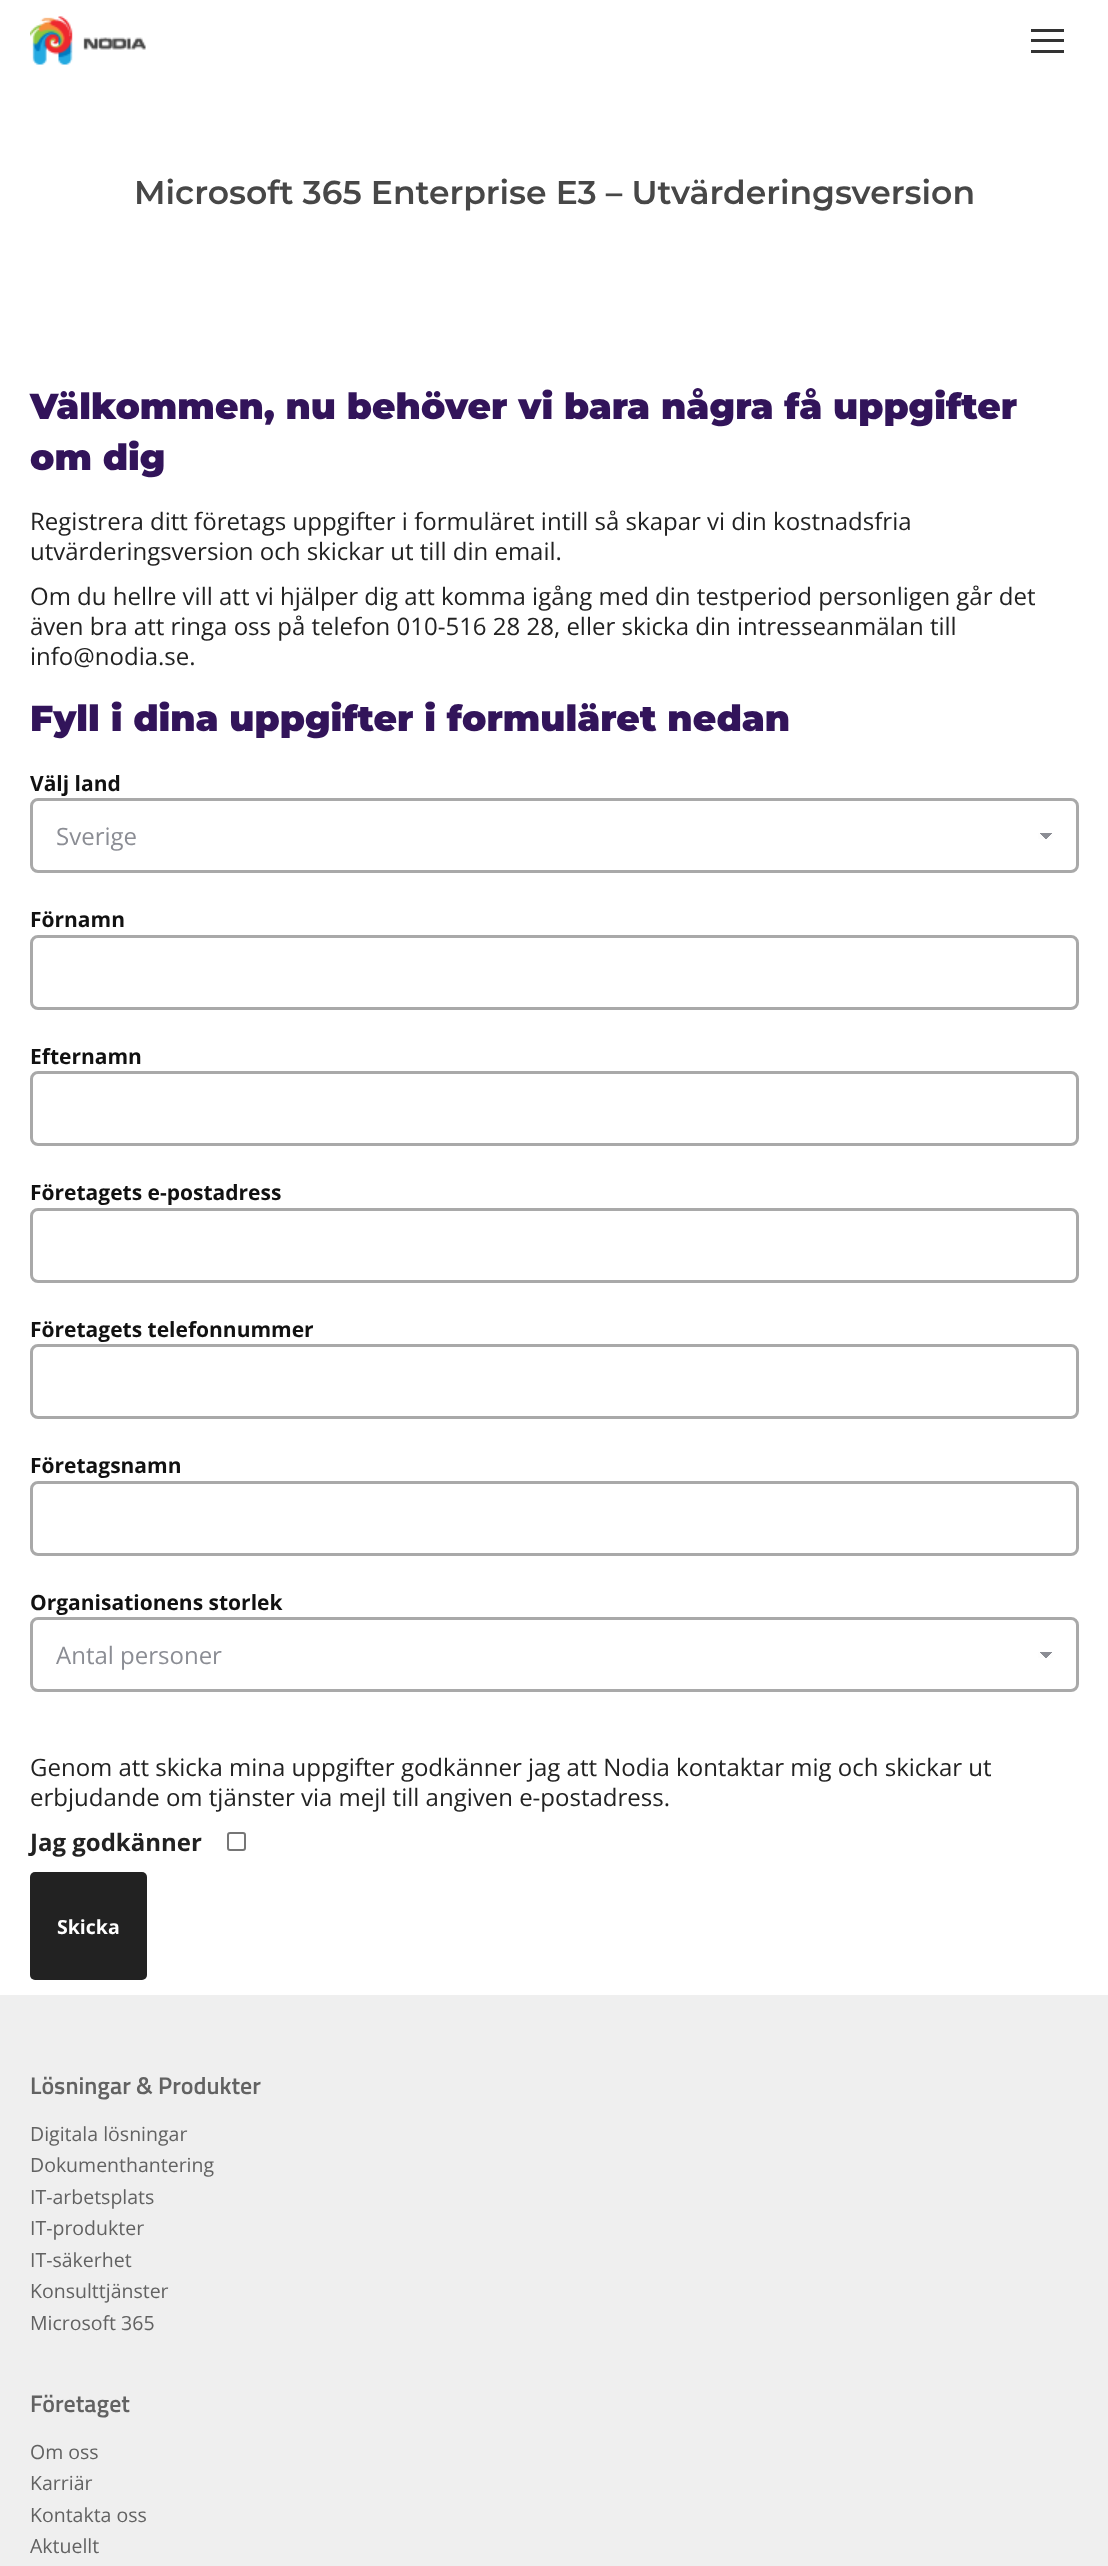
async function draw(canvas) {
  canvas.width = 1108
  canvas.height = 2566
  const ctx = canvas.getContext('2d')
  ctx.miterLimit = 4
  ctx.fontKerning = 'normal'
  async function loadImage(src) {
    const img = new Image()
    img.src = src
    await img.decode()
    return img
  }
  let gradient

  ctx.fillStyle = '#fff'
  ctx.fillRect(0, 0, 1108, 2566)
  ctx.drawImage(await loadImage('image0.png'), 30, 16, 116, 49)
  ctx.fillStyle = '#333'
  ctx.fillRect(1031, 29, 33, 3)
  ctx.fillRect(1031, 39, 33, 3)
  ctx.fillRect(1031, 50, 33, 3)
  ctx.font = '600 33px Montserrat'
  ctx.fillStyle = '#474747'
  ctx.fillText('Microsoft 365 Enterprise E3 – Utvärderingsversion', 134, 204)
  ctx.font = '900 36px Montserrat'
  ctx.fillStyle = '#32145a'
  ctx.fillText('Välkommen, nu behöver vi bara några få uppgifter', 30, 419)
  ctx.fillText('om dig', 30, 470)
  ctx.font = '24px Open Sans'
  ctx.fillStyle = '#222'
  ctx.fillText('Registrera ditt företags uppgifter i formuläret intill så skapar vi din kostnadsfria', 30, 530)
  ctx.fillText('utvärderingsversion och skickar ut till din email.', 30, 560)
  ctx.fillText('Om du hellre vill att vi hjälper dig att komma igång med din testperiod personligen går det', 30, 605)
  ctx.fillText('även bra att ringa oss på telefon 010-516 28 28, eller skicka din intresseanmälan till', 30, 635)
  ctx.fillText('info@nodia.se.', 30, 665)
  ctx.font = '900 36px Montserrat'
  ctx.fillStyle = '#32145a'
  ctx.fillText('Fyll i dina uppgifter i formuläret nedan', 30, 731)
  ctx.font = 'bold 21px Open Sans'
  ctx.fillStyle = '#111'
  ctx.fillText('Välj land', 30, 791)
  gradient = ctx.createLinearGradient(1046, 832, 1053, 839)
  gradient.addColorStop(0.5, '#8b8d94')
  gradient.addColorStop(0.5, '#fdfdfd')
  ctx.fillStyle = gradient
  ctx.fillRect(1046, 833, 7, 6)
  gradient = ctx.createLinearGradient(1038, 839, 1046, 832)
  gradient.addColorStop(0.5, '#fdfdfd')
  gradient.addColorStop(0.5, '#8b8d94')
  ctx.fillStyle = gradient
  ctx.fillRect(1038, 833, 8, 6)
  ctx.beginPath()
  ctx.roundRect(31.5, 799.5, 1046, 72, 6.5)
  ctx.strokeStyle = '#a9a9a9'
  ctx.lineWidth = 3
  ctx.stroke()
  ctx.font = '24px Open Sans'
  ctx.fillStyle = '#8b8d94'
  ctx.fillText('Sverige', 56, 845)
  ctx.font = 'bold 21px Open Sans'
  ctx.fillStyle = '#111'
  ctx.fillText('Förnamn', 30, 927)
  ctx.beginPath()
  ctx.roundRect(31.5, 936.5, 1046, 72, 6.5)
  ctx.stroke()
  ctx.fillText('Efternamn', 30, 1064)
  ctx.beginPath()
  ctx.roundRect(31.5, 1072.5, 1046, 72, 6.5)
  ctx.stroke()
  ctx.fillText('Företagets e-postadress', 30, 1200)
  ctx.beginPath()
  ctx.roundRect(31.5, 1209.5, 1046, 72, 6.5)
  ctx.stroke()
  ctx.fillText('Företagets telefonnummer', 30, 1337)
  ctx.beginPath()
  ctx.roundRect(31.5, 1345.5, 1046, 72, 6.5)
  ctx.stroke()
  ctx.fillText('Företagsnamn', 30, 1473)
  ctx.beginPath()
  ctx.roundRect(31.5, 1482.5, 1046, 72, 6.5)
  ctx.stroke()
  ctx.fillText('Organisationens storlek', 30, 1610)
  gradient = ctx.createLinearGradient(1046, 1651, 1053, 1658)
  gradient.addColorStop(0.5, '#8b8d94')
  gradient.addColorStop(0.5, '#fdfdfd')
  ctx.fillStyle = gradient
  ctx.fillRect(1046, 1652, 7, 6)
  gradient = ctx.createLinearGradient(1038, 1658, 1046, 1651)
  gradient.addColorStop(0.5, '#fdfdfd')
  gradient.addColorStop(0.5, '#8b8d94')
  ctx.fillStyle = gradient
  ctx.fillRect(1038, 1652, 8, 6)
  ctx.beginPath()
  ctx.roundRect(31.5, 1618.5, 1046, 72, 6.5)
  ctx.stroke()
  ctx.font = '24px Open Sans'
  ctx.fillStyle = '#8b8d94'
  ctx.fillText('Antal personer', 56, 1664)
  ctx.fillStyle = '#222'
  ctx.fillText('Genom att skicka mina uppgifter godkänner jag att Nodia kontaktar mig och skickar ut', 30, 1776)
  ctx.fillText('erbjudande om tjänster via mejl till angiven e-postadress.', 30, 1806)
  ctx.font = 'bold 24px Open Sans'
  ctx.fillText('Jag godkänner', 30, 1851)
  ctx.beginPath()
  ctx.roundRect(228, 1833, 17, 17, 2)
  ctx.strokeStyle = '#767676'
  ctx.lineWidth = 2
  ctx.stroke()
  ctx.beginPath()
  ctx.roundRect(30, 1872, 117, 108, 5)
  ctx.fill()
  ctx.font = 'bold 19.5px Open Sans'
  ctx.fillStyle = '#fff'
  ctx.fillText('Skicka', 57, 1934)
  ctx.fillStyle = '#efefef'
  ctx.fillRect(0, 1995, 1108, 571)
  ctx.font = '600 24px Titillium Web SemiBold'
  ctx.fillStyle = '#626262'
  ctx.fillText('Lösningar & Produkter', 30, 2094)
  ctx.font = '19.5px Open Sans'
  ctx.fillText('Digitala lösningar', 30, 2141)
  ctx.fillText('Dokumenthantering', 30, 2172)
  ctx.fillText('IT-arbetsplats', 30, 2204)
  ctx.fillText('IT-produkter', 30, 2235)
  ctx.fillText('IT-säkerhet', 30, 2267)
  ctx.fillText('Konsulttjänster', 30, 2298)
  ctx.fillText('Microsoft 365', 30, 2330)
  ctx.font = '600 24px Titillium Web SemiBold'
  ctx.fillText('Företaget', 30, 2412)
  ctx.font = '19.5px Open Sans'
  ctx.fillText('Om oss', 30, 2459)
  ctx.fillText('Karriär', 30, 2490)
  ctx.fillText('Kontakta oss', 30, 2522)
  ctx.fillText('Aktuellt', 30, 2553)
}

draw(document.querySelector('canvas'))
